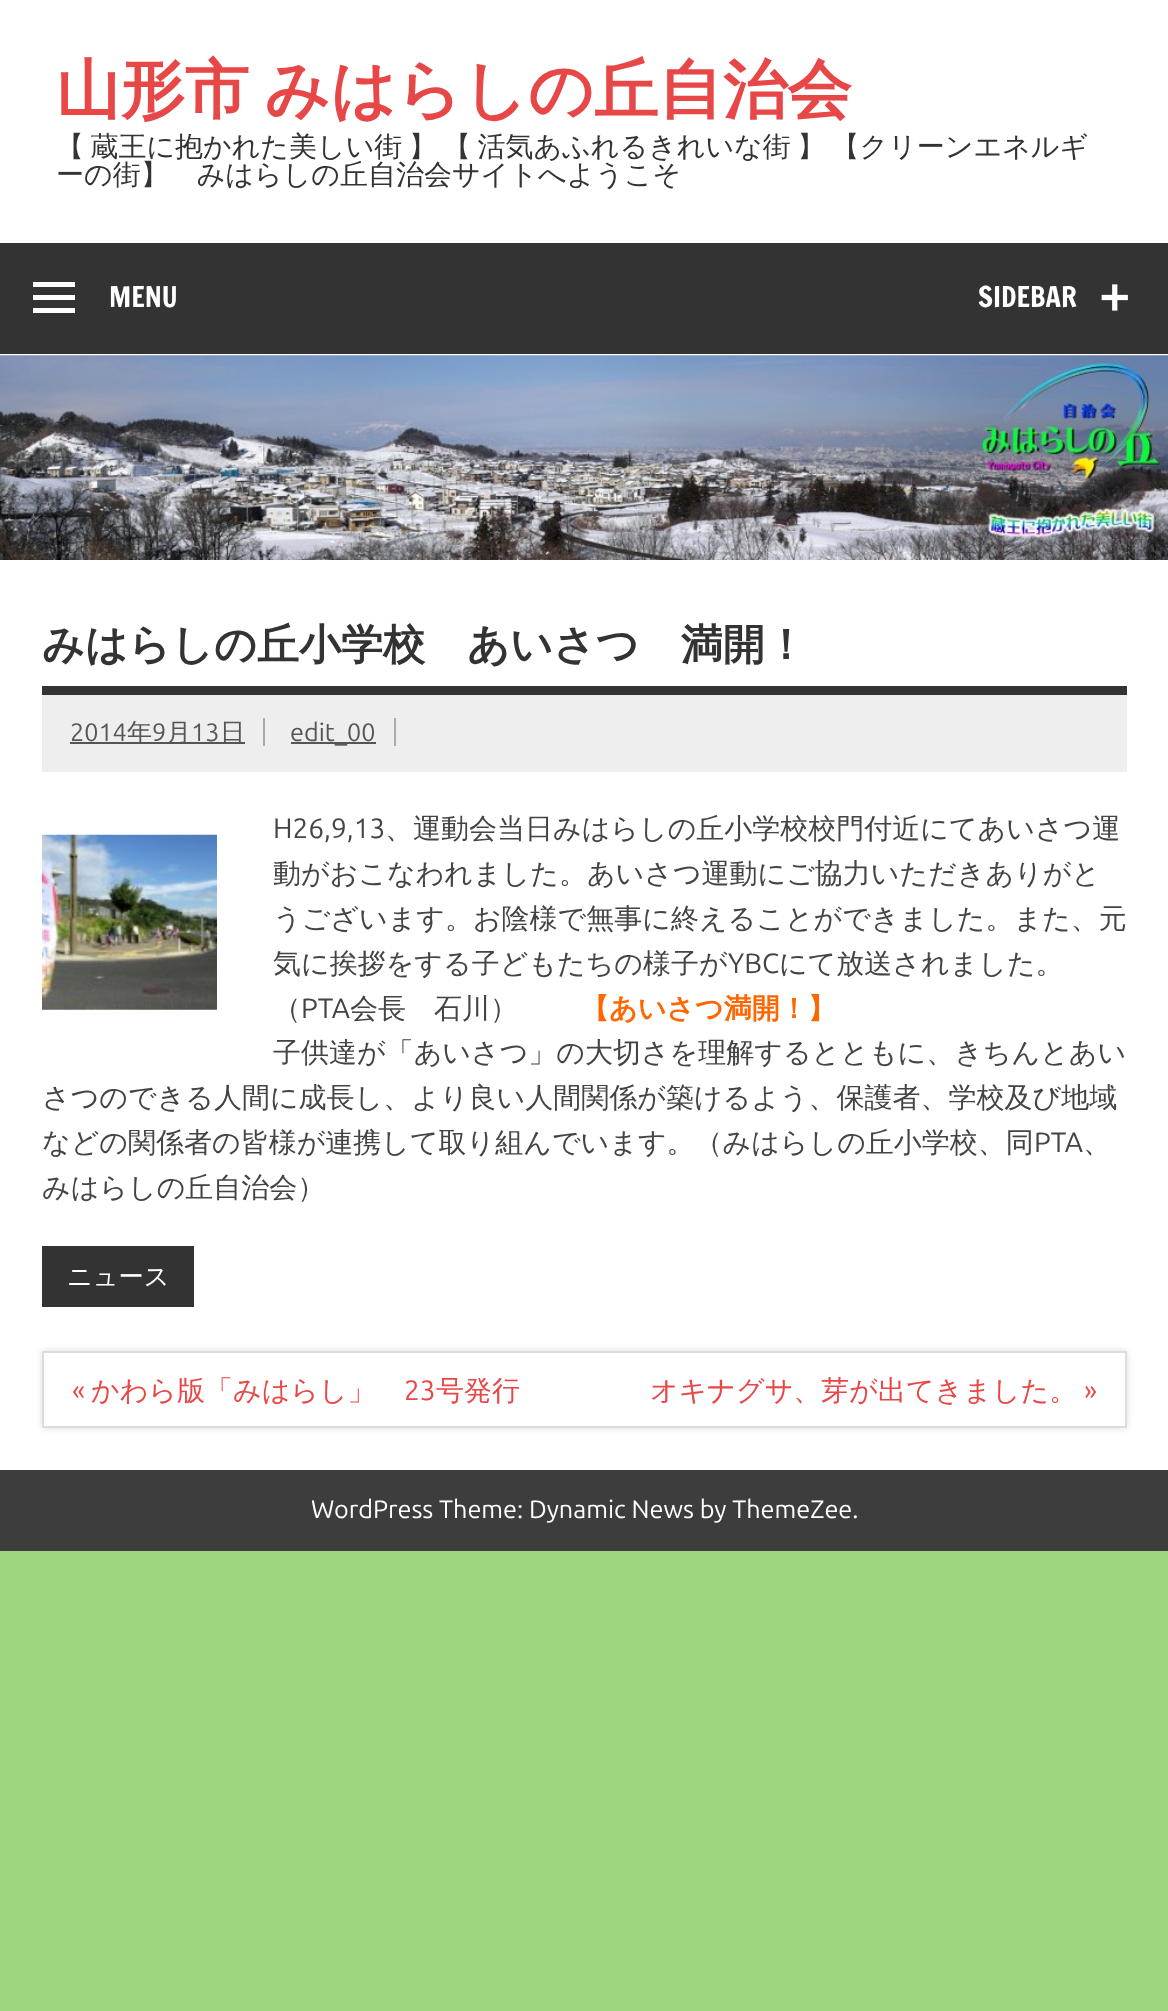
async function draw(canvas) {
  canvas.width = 1168
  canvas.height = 2011
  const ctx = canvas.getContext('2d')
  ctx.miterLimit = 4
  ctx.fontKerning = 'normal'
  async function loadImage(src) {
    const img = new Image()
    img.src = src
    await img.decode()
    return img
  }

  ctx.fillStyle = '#9ed67e'
  ctx.fillRect(0, 0, 1168, 2011)
  ctx.fillStyle = '#fff'
  ctx.fillRect(0, 0, 1168, 1470)
  ctx.wordSpacing = '-4px'
  ctx.font = 'bold 64.4px WenQuanYi Zen Hei'
  ctx.fillStyle = '#e84747'
  ctx.fillText('山形市 みはらしの丘自治会', 56, 112)
  ctx.wordSpacing = '-2px'
  ctx.font = '500 28px WenQuanYi Zen Hei'
  ctx.fillStyle = '#333'
  ctx.fillText('【 蔵王に抱かれた美しい街 】 【 活気あふれるきれいな街 】 【クリーンエネルギ', 56, 156)
  ctx.wordSpacing = '0px'
  ctx.fillText('ーの街】　みはらしの丘自治会サイトへようこそ', 56, 184)
  ctx.fillRect(0, 243, 1168, 111)
  ctx.fillStyle = '#fff'
  ctx.beginPath()
  ctx.moveTo(33, 313)
  ctx.lineTo(33, 308)
  ctx.lineTo(75, 308)
  ctx.lineTo(75, 313)
  ctx.closePath()
  ctx.moveTo(33, 282)
  ctx.lineTo(75, 282)
  ctx.lineTo(75, 287)
  ctx.lineTo(33, 287)
  ctx.closePath()
  ctx.moveTo(33, 300)
  ctx.lineTo(33, 295)
  ctx.lineTo(75, 295)
  ctx.lineTo(75, 300)
  ctx.closePath()
  ctx.fill()
  ctx.font = '28px Francois One'
  ctx.fillText('MENU', 109, 307)
  ctx.fillText('SIDEBAR', 978, 307)
  ctx.drawImage(await loadImage('image0.png'), 1101, 284, 27, 27)
  ctx.drawImage(await loadImage('image1.png'), 0, 355, 1168, 205)
  ctx.fillStyle = '#333'
  ctx.fillRect(42, 686, 1085, 9)
  ctx.font = 'bold 42px WenQuanYi Zen Hei'
  ctx.fillText('みはらしの丘小学校　あいさつ　満開！', 42, 659)
  ctx.fillStyle = '#eee'
  ctx.fillRect(42, 695, 1085, 77)
  ctx.font = '25.2px Ubuntu'
  ctx.fillStyle = '#555'
  ctx.fillText('2014', 70, 741)
  ctx.fillRect(70, 742, 175, 2)
  ctx.font = '500 25.2px WenQuanYi Zen Hei'
  ctx.fillText('年', 127, 741)
  ctx.font = '25.2px Ubuntu'
  ctx.fillText('9', 152, 741)
  ctx.font = '500 25.2px WenQuanYi Zen Hei'
  ctx.fillText('月', 166, 741)
  ctx.font = '25.2px Ubuntu'
  ctx.fillText('13', 191, 741)
  ctx.font = '500 25.2px WenQuanYi Zen Hei'
  ctx.fillText('日', 220, 741)
  ctx.fillStyle = '#aaa'
  ctx.fillRect(263, 718, 2, 28)
  ctx.fillStyle = '#555'
  ctx.fillRect(291, 742, 85, 2)
  ctx.font = '25.2px Ubuntu'
  ctx.fillText('edit_00', 290, 741)
  ctx.fillStyle = '#aaa'
  ctx.fillRect(394, 718, 2, 28)
  ctx.font = '28px Ubuntu'
  ctx.fillStyle = '#444'
  ctx.fillText('H26,9,13', 273, 838)
  ctx.font = '500 28px WenQuanYi Zen Hei'
  ctx.fillText('、運動会当日みはらしの丘小学校校門付近にてあいさつ運', 385, 838)
  ctx.drawImage(await loadImage('image2.png'), 42, 834, 175, 176)
  ctx.fillText('動がおこなわれました。あいさつ運動にご協力いただきありがと', 273, 883)
  ctx.fillText('うございます。お陰様で無事に終えることができました。また、元', 273, 928)
  ctx.fillText('気に挨拶をする子どもたちの様子が', 273, 973)
  ctx.font = '28px Ubuntu'
  ctx.fillText('YBC', 728, 973)
  ctx.font = '500 28px WenQuanYi Zen Hei'
  ctx.fillText('にて放送されました。', 779, 973)
  ctx.fillText('（', 273, 1018)
  ctx.font = '28px Ubuntu'
  ctx.fillText('PTA', 301, 1018)
  ctx.font = '500 28px WenQuanYi Zen Hei'
  ctx.fillText('会長　石川）', 350, 1018)
  ctx.font = 'bold 28px WenQuanYi Zen Hei'
  ctx.fillStyle = '#f60'
  ctx.fillText('【あいさつ満開！】', 581, 1018)
  ctx.font = '500 28px WenQuanYi Zen Hei'
  ctx.fillStyle = '#444'
  ctx.fillText('子供達が「あいさつ」の大切さを理解するとともに、きちんとあい', 273, 1062)
  ctx.fillText('さつのできる人間に成長し、より良い人間関係が築けるよう、保護者、学校及び地域', 42, 1107)
  ctx.fillText('などの関係者の皆様が連携して取り組んでいます。（みはらしの丘小学校、同', 42, 1152)
  ctx.font = '28px Ubuntu'
  ctx.fillText('PTA', 1034, 1152)
  ctx.font = '500 28px WenQuanYi Zen Hei'
  ctx.fillText('、', 1083, 1152)
  ctx.fillText('みはらしの丘自治会）', 42, 1197)
  ctx.fillStyle = '#333'
  ctx.fillRect(42, 1246, 152, 61)
  ctx.font = '500 25.2px WenQuanYi Zen Hei'
  ctx.fillStyle = '#fff'
  ctx.fillText('ニュース', 67, 1285)
  ctx.save()
  ctx.beginPath()
  ctx.moveTo(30, 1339)
  ctx.lineTo(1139, 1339)
  ctx.lineTo(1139, 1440)
  ctx.lineTo(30, 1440)
  ctx.closePath()
  ctx.moveTo(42, 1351)
  ctx.lineTo(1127, 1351)
  ctx.lineTo(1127, 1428)
  ctx.lineTo(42, 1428)
  ctx.closePath()
  ctx.clip('evenodd')
  ctx.fillStyle = '#ddd'
  ctx.filter = 'blur(3.5px)'
  ctx.beginPath()
  ctx.rect(42, 1351, 1085, 77)
  ctx.fill()
  ctx.filter = 'none'
  ctx.restore()
  ctx.strokeStyle = '#ddd'
  ctx.lineWidth = 2
  ctx.strokeRect(43, 1352, 1083, 75)
  ctx.font = '28px Ubuntu'
  ctx.fillStyle = '#e84747'
  ctx.fillText('«', 72, 1400)
  ctx.font = '500 28px WenQuanYi Zen Hei'
  ctx.fillText('かわら版「みはらし」', 91, 1400)
  ctx.font = '28px Ubuntu'
  ctx.fillText('23', 404, 1400)
  ctx.font = '500 28px WenQuanYi Zen Hei'
  ctx.fillText('号発行', 436, 1400)
  ctx.fillText('オキナグサ、芽が出てきました。', 650, 1400)
  ctx.font = '28px Ubuntu'
  ctx.fillText('»', 1084, 1400)
  ctx.fillStyle = '#3d3d3d'
  ctx.fillRect(0, 1470, 1168, 81)
  ctx.font = '25.2px Ubuntu'
  ctx.fillStyle = '#fff'
  ctx.fillText('WordPress Theme: Dynamic News by ThemeZee.', 311, 1518)
}

draw(document.querySelector('canvas'))
